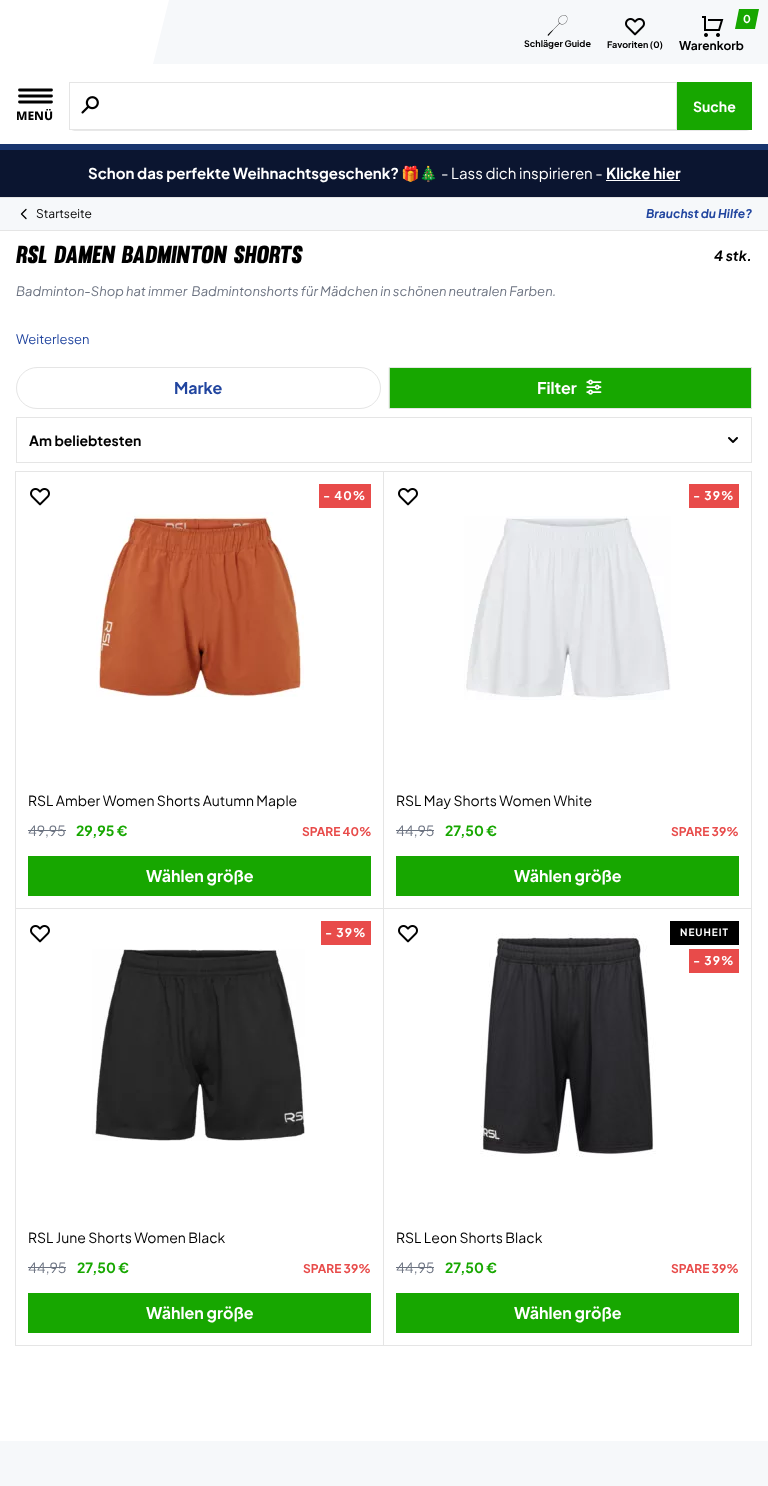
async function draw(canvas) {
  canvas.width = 768
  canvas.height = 1486
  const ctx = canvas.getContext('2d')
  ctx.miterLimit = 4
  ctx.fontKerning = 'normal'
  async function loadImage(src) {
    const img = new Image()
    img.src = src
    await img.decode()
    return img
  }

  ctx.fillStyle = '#fff'
  ctx.fillRect(0, 0, 768, 1486)
  ctx.fillStyle = '#f6f8fa'
  ctx.fillRect(181, 0, 587, 64)
  ctx.beginPath()
  ctx.moveTo(169, 0)
  ctx.lineTo(197, 0)
  ctx.lineTo(181, 64)
  ctx.lineTo(153, 64)
  ctx.closePath()
  ctx.fill()
  ctx.drawImage(await loadImage('image0.png'), 547, 15, 21, 21)
  ctx.font = 'bold 9px Plus Jakarta Sans'
  ctx.fillStyle = '#000'
  ctx.fillText('Schläger Guide', 524, 47)
  ctx.drawImage(await loadImage('image1.png'), 625, 18, 20, 18)
  ctx.fillText('Favoriten (0)', 607, 48)
  ctx.drawImage(await loadImage('image2.png'), 702, 16, 22, 21)
  ctx.fillStyle = '#17a700'
  ctx.beginPath()
  ctx.moveTo(739, 9)
  ctx.lineTo(759, 9)
  ctx.lineTo(755, 29)
  ctx.lineTo(735, 29)
  ctx.closePath()
  ctx.fill()
  ctx.font = 'bold 11px Plus Jakarta Sans'
  ctx.fillStyle = '#fff'
  ctx.fillText('0', 743, 23)
  ctx.font = 'bold 12px Plus Jakarta Sans'
  ctx.fillStyle = '#000'
  ctx.fillText('Warenkorb', 679, 50)
  ctx.beginPath()
  ctx.moveTo(19.5, 90)
  ctx.lineTo(51.5, 90)
  ctx.moveTo(19.5, 96)
  ctx.lineTo(51.5, 96)
  ctx.moveTo(19.5, 102)
  ctx.lineTo(51.5, 102)
  ctx.strokeStyle = '#000'
  ctx.lineWidth = 2.8
  ctx.lineCap = 'round'
  ctx.lineJoin = 'round'
  ctx.stroke()
  ctx.font = '800 12px Noto Sans'
  ctx.fillText('MENÜ', 16, 120)
  ctx.fillStyle = '#e8e8e8'
  ctx.beginPath()
  ctx.moveTo(69, 124)
  ctx.lineTo(69, 125)
  ctx.bezierCurveTo(69, 128, 72, 131, 75, 131)
  ctx.lineTo(746, 131)
  ctx.bezierCurveTo(749, 131, 752, 128, 752, 125)
  ctx.lineTo(752, 124)
  ctx.bezierCurveTo(752, 127, 749, 130, 746, 130)
  ctx.lineTo(75, 130)
  ctx.bezierCurveTo(72, 130, 69, 127, 69, 124)
  ctx.closePath()
  ctx.fill()
  ctx.fillStyle = '#fff'
  ctx.fillRect(70, 127, 2, 2)
  ctx.strokeStyle = '#e5e5e5'
  ctx.lineWidth = 1
  ctx.lineJoin = 'miter'
  ctx.strokeRect(69.5, 82.5, 607, 47)
  ctx.drawImage(await loadImage('image3.png'), 81, 96, 18, 18)
  ctx.fillStyle = '#17a700'
  ctx.fillRect(677, 82, 75, 48)
  ctx.font = 'bold 14px Plus Jakarta Sans'
  ctx.fillStyle = '#fff'
  ctx.fillText('Suche', 693, 112)
  ctx.fillStyle = '#18346d'
  ctx.fillRect(0, 144, 768, 6)
  ctx.fillStyle = '#0b1530'
  ctx.fillRect(0, 150, 768, 47)
  ctx.font = 'bold 15px Plus Jakarta Sans'
  ctx.fillStyle = '#fff'
  ctx.fillText('Schon das perfekte Weihnachtsgeschenk?', 88, 179)
  ctx.font = 'bold 15px Noto Color Emoji'
  ctx.fillText('🎁🎄', 401, 179)
  ctx.font = '15px Plus Jakarta Sans'
  ctx.fillText('- Lass dich inspirieren -', 441, 179)
  ctx.font = 'bold 15px Plus Jakarta Sans'
  ctx.fillText('Klicke hier', 606, 179)
  ctx.fillRect(606, 180, 74, 1)
  ctx.fillStyle = '#f6f8fa'
  ctx.fillRect(0, 198, 768, 32)
  ctx.fillStyle = '#e5e5e5'
  ctx.fillRect(0, 197, 768, 1)
  ctx.fillRect(0, 230, 768, 1)
  ctx.beginPath()
  ctx.moveTo(26, 218.5)
  ctx.lineTo(21.5, 214)
  ctx.lineTo(26, 209.5)
  ctx.strokeStyle = '#000'
  ctx.lineWidth = 1.3
  ctx.lineJoin = 'round'
  ctx.stroke()
  ctx.font = '12px Plus Jakarta Sans'
  ctx.fillStyle = '#000'
  ctx.fillText('Startseite', 36, 218)
  ctx.font = 'italic bold 12px Plus Jakarta Sans'
  ctx.fillStyle = '#21459f'
  ctx.fillText('Brauchst du Hilfe?', 646, 218)
  ctx.font = 'italic 24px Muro'
  ctx.fillStyle = '#000'
  ctx.fillText('RSL Damen Badminton Shorts', 16, 263)
  ctx.font = 'italic bold 14px Plus Jakarta Sans'
  ctx.fillText('4 stk.', 714, 261)
  ctx.font = 'italic 13px Plus Jakarta Sans'
  ctx.fillStyle = '#6b7280'
  ctx.fillText('Badminton-Shop hat immer  Badmintonshorts für Mädchen in schönen neutralen Farben.', 16, 296)
  ctx.font = '13px Plus Jakarta Sans'
  ctx.fillStyle = '#21459f'
  ctx.fillText('Weiterlesen', 16, 344)
  ctx.beginPath()
  ctx.roundRect(16.5, 367.5, 364, 41, 20.5)
  ctx.strokeStyle = '#e5e5e5'
  ctx.lineWidth = 1
  ctx.lineJoin = 'miter'
  ctx.stroke()
  ctx.font = 'bold 16px Plus Jakarta Sans'
  ctx.fillText('Marke', 174, 394)
  ctx.fillStyle = '#17a700'
  ctx.beginPath()
  ctx.rect(389.5, 367.5, 362, 41)
  ctx.fill()
  ctx.stroke()
  ctx.fillStyle = '#fff'
  ctx.fillText('Filter', 537, 394)
  ctx.drawImage(await loadImage('image4.png'), 586, 379, 16, 16)
  ctx.strokeRect(16.5, 417.5, 735, 45)
  ctx.font = 'bold 14px Plus Jakarta Sans'
  ctx.fillStyle = '#000'
  ctx.fillText('Am beliebtesten', 29, 446)
  ctx.drawImage(await loadImage('image5.png'), 728, 437, 10, 6)
  ctx.strokeRect(15.5, 471.5, 368, 437)
  ctx.drawImage(await loadImage('image6.png'), 30, 488, 20, 18)
  ctx.fillStyle = '#e84b4a'
  ctx.fillRect(319, 484, 52, 24)
  ctx.letterSpacing = '1px'
  ctx.font = 'bold 12px Plus Jakarta Sans'
  ctx.fillStyle = '#fff'
  ctx.fillText('- 40%', 323, 500)
  ctx.drawImage(await loadImage('image7.png'), 96, 512, 208, 185)
  ctx.letterSpacing = '0px'
  ctx.font = '14px Plus Jakarta Sans'
  ctx.fillStyle = '#000'
  ctx.fillText('RSL Amber Women Shorts Autumn Maple', 28, 806)
  ctx.fillStyle = '#6b7280'
  ctx.fillText('49,95', 28, 836)
  ctx.fillRect(28, 830, 38, 1)
  ctx.font = 'bold 14px Plus Jakarta Sans'
  ctx.fillStyle = '#17a700'
  ctx.fillText('29,95 €', 76, 836)
  ctx.font = 'bold 12px Plus Jakarta Sans'
  ctx.fillStyle = '#e84b4a'
  ctx.fillText('SPARE 40%', 302, 836)
  ctx.fillStyle = '#17a700'
  ctx.fillRect(28, 856, 343, 40)
  ctx.font = 'bold 16px Plus Jakarta Sans'
  ctx.fillStyle = '#fff'
  ctx.fillText('Wählen größe', 146, 882)
  ctx.strokeRect(383.5, 471.5, 368, 437)
  ctx.drawImage(await loadImage('image6.png'), 398, 488, 20, 18)
  ctx.fillStyle = '#e84b4a'
  ctx.fillRect(689, 484, 50, 24)
  ctx.letterSpacing = '1px'
  ctx.font = 'bold 12px Plus Jakarta Sans'
  ctx.fillStyle = '#fff'
  ctx.fillText('- 39%', 693, 500)
  ctx.drawImage(await loadImage('image8.png'), 464, 516, 207, 184)
  ctx.letterSpacing = '0px'
  ctx.font = '14px Plus Jakarta Sans'
  ctx.fillStyle = '#000'
  ctx.fillText('RSL May Shorts Women White', 396, 806)
  ctx.fillStyle = '#6b7280'
  ctx.fillText('44,95', 396, 836)
  ctx.fillRect(396, 830, 38, 1)
  ctx.font = 'bold 14px Plus Jakarta Sans'
  ctx.fillStyle = '#17a700'
  ctx.fillText('27,50 €', 445, 836)
  ctx.font = 'bold 12px Plus Jakarta Sans'
  ctx.fillStyle = '#e84b4a'
  ctx.fillText('SPARE 39%', 671, 836)
  ctx.fillStyle = '#17a700'
  ctx.fillRect(396, 856, 343, 40)
  ctx.font = 'bold 16px Plus Jakarta Sans'
  ctx.fillStyle = '#fff'
  ctx.fillText('Wählen größe', 514, 882)
  ctx.strokeRect(15.5, 908.5, 368, 437)
  ctx.drawImage(await loadImage('image6.png'), 30, 925, 20, 18)
  ctx.fillStyle = '#e84b4a'
  ctx.fillRect(321, 921, 50, 24)
  ctx.letterSpacing = '1px'
  ctx.font = 'bold 12px Plus Jakarta Sans'
  ctx.fillStyle = '#fff'
  ctx.fillText('- 39%', 325, 937)
  ctx.drawImage(await loadImage('image9.png'), 92, 949, 213, 192)
  ctx.letterSpacing = '0px'
  ctx.font = '14px Plus Jakarta Sans'
  ctx.fillStyle = '#000'
  ctx.fillText('RSL June Shorts Women Black', 28, 1243)
  ctx.fillStyle = '#6b7280'
  ctx.fillText('44,95', 28, 1273)
  ctx.fillRect(28, 1267, 38, 1)
  ctx.font = 'bold 14px Plus Jakarta Sans'
  ctx.fillStyle = '#17a700'
  ctx.fillText('27,50 €', 77, 1273)
  ctx.font = 'bold 12px Plus Jakarta Sans'
  ctx.fillStyle = '#e84b4a'
  ctx.fillText('SPARE 39%', 303, 1273)
  ctx.fillStyle = '#17a700'
  ctx.fillRect(28, 1293, 343, 40)
  ctx.font = 'bold 16px Plus Jakarta Sans'
  ctx.fillStyle = '#fff'
  ctx.fillText('Wählen größe', 146, 1319)
  ctx.strokeRect(383.5, 908.5, 368, 437)
  ctx.drawImage(await loadImage('image10.png'), 480, 933, 176, 224)
  ctx.drawImage(await loadImage('image6.png'), 398, 925, 20, 18)
  ctx.fillStyle = '#000'
  ctx.fillRect(670, 921, 69, 24)
  ctx.letterSpacing = '1px'
  ctx.font = 'bold 10px Plus Jakarta Sans'
  ctx.fillStyle = '#fff'
  ctx.fillText('NEUHEIT', 680, 936)
  ctx.fillStyle = '#e84b4a'
  ctx.fillRect(689, 949, 50, 24)
  ctx.font = 'bold 12px Plus Jakarta Sans'
  ctx.fillStyle = '#fff'
  ctx.fillText('- 39%', 693, 965)
  ctx.letterSpacing = '0px'
  ctx.font = '14px Plus Jakarta Sans'
  ctx.fillStyle = '#000'
  ctx.fillText('RSL Leon Shorts Black', 396, 1243)
  ctx.fillStyle = '#6b7280'
  ctx.fillText('44,95', 396, 1273)
  ctx.fillRect(396, 1267, 38, 1)
  ctx.font = 'bold 14px Plus Jakarta Sans'
  ctx.fillStyle = '#17a700'
  ctx.fillText('27,50 €', 445, 1273)
  ctx.font = 'bold 12px Plus Jakarta Sans'
  ctx.fillStyle = '#e84b4a'
  ctx.fillText('SPARE 39%', 671, 1273)
  ctx.fillStyle = '#17a700'
  ctx.fillRect(396, 1293, 343, 40)
  ctx.font = 'bold 16px Plus Jakarta Sans'
  ctx.fillStyle = '#fff'
  ctx.fillText('Wählen größe', 514, 1319)
  ctx.fillStyle = '#f6f8fa'
  ctx.fillRect(0, 1441, 768, 45)
}

draw(document.querySelector('canvas'))
